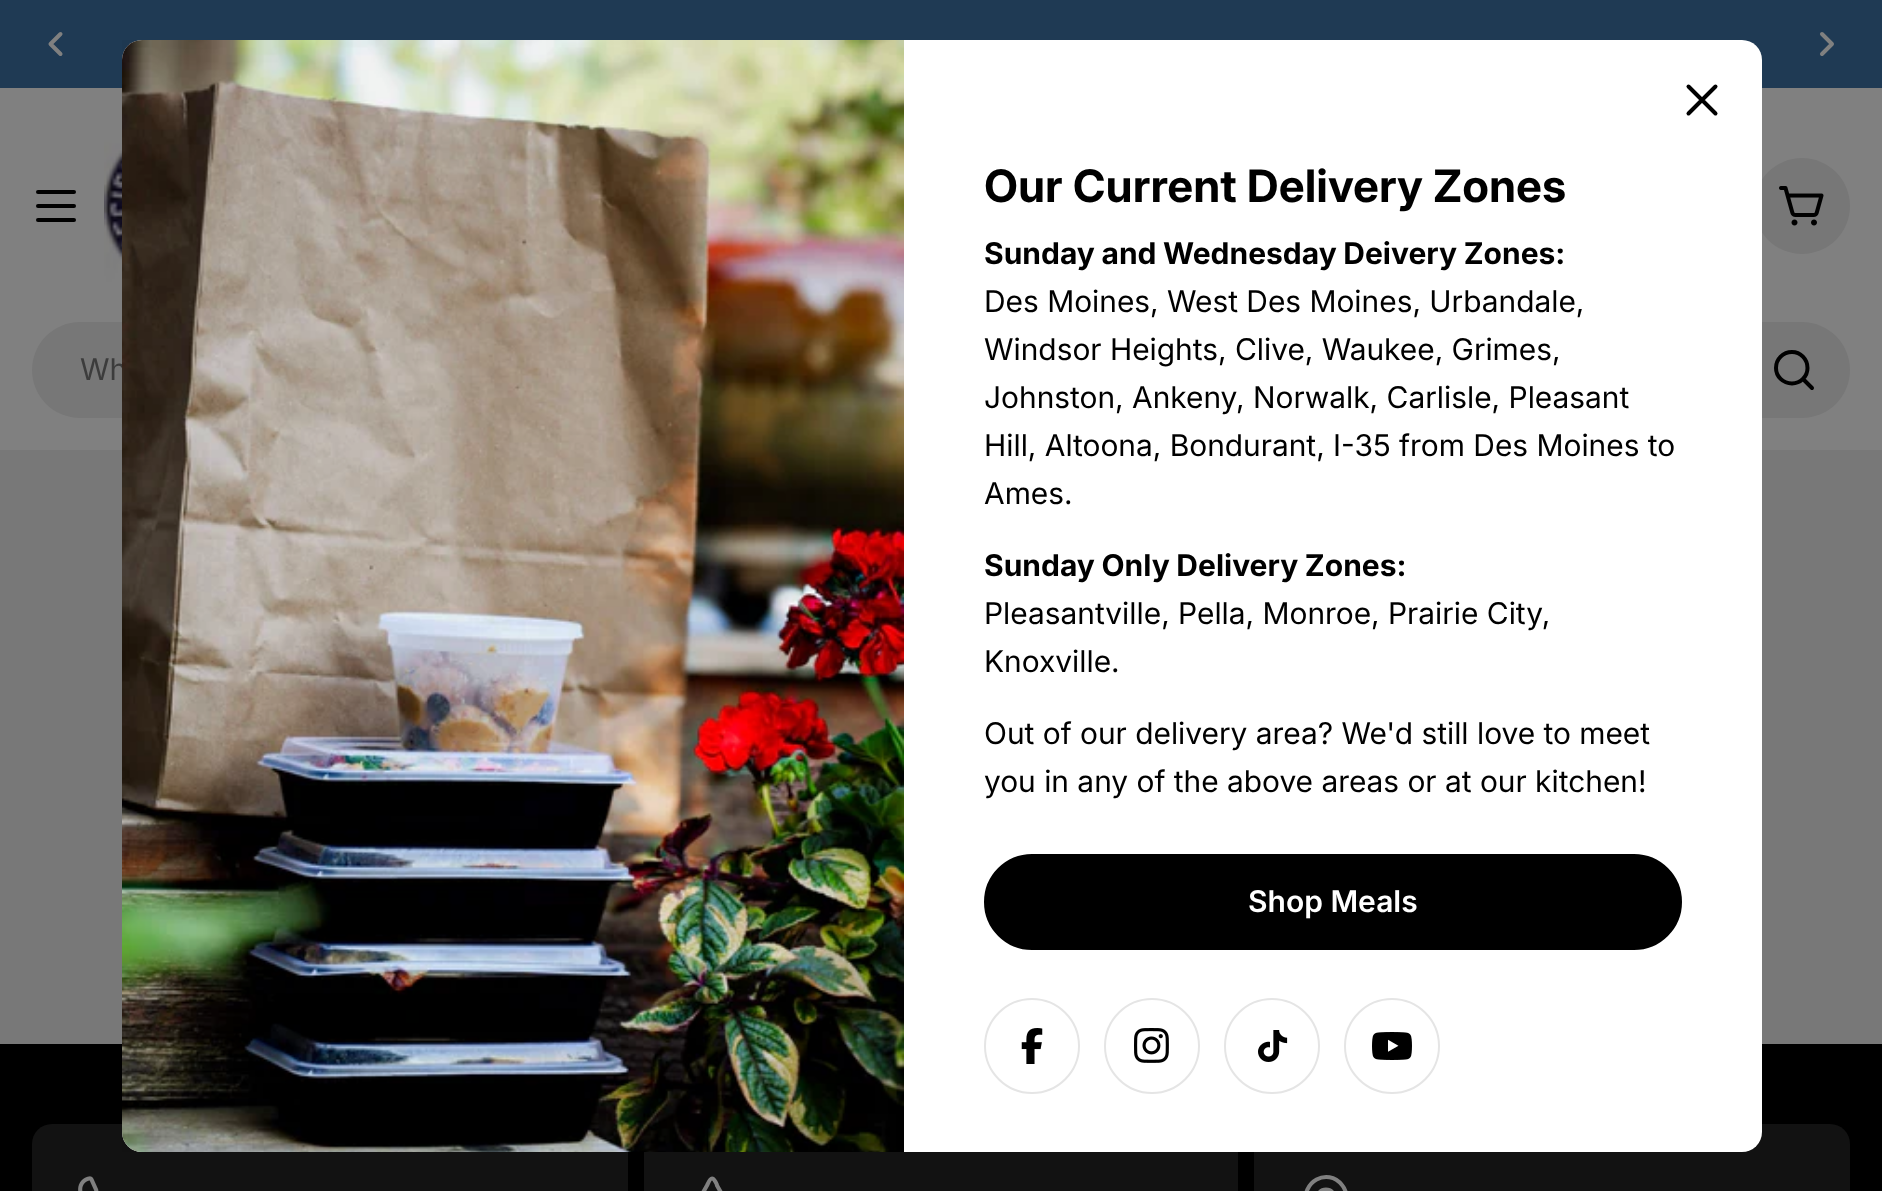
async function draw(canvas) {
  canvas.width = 1882
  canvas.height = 1191
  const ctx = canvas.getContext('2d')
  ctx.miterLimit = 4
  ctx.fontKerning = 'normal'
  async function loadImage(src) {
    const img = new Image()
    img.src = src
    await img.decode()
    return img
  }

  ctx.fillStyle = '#787878'
  ctx.fillRect(0, 0, 1882, 1191)
  ctx.fillStyle = '#1f3a54'
  ctx.fillRect(0, 0, 1882, 88)
  ctx.beginPath()
  ctx.moveTo(60.5, 54)
  ctx.lineTo(50.5, 44)
  ctx.lineTo(60.5, 34)
  ctx.strokeStyle = '#808080'
  ctx.lineWidth = 4
  ctx.lineCap = 'round'
  ctx.lineJoin = 'round'
  ctx.stroke()
  ctx.beginPath()
  ctx.moveTo(1822, 34)
  ctx.lineTo(1832, 44)
  ctx.lineTo(1822, 54)
  ctx.stroke()
  ctx.fillStyle = '#808080'
  ctx.fillRect(0, 88, 1882, 362)
  ctx.fillStyle = '#000'
  ctx.beginPath()
  ctx.roundRect(36, 204, 40, 4, 2)
  ctx.fill()
  ctx.beginPath()
  ctx.roundRect(36, 190, 40, 4, 2)
  ctx.fill()
  ctx.beginPath()
  ctx.roundRect(36, 218, 40, 4, 2)
  ctx.fill()
  ctx.drawImage(await loadImage('image0.png'), 104, 120, 18, 170)
  ctx.fillStyle = '#777'
  ctx.beginPath()
  ctx.arc(1802, 206, 48, 0, 2 * Math.PI)
  ctx.fill()
  ctx.drawImage(await loadImage('image1.png'), 1779, 186, 45, 40)
  ctx.beginPath()
  ctx.roundRect(32, 322, 1818, 96, 48)
  ctx.fill()
  ctx.font = '30px Inter'
  ctx.fillStyle = '#3c3c3c'
  ctx.fillText('Wh', 80, 380)
  ctx.beginPath()
  ctx.moveTo(1792, 383.5)
  ctx.bezierCurveTo(1800.5, 383.5, 1807.5, 376.5, 1807.5, 368)
  ctx.bezierCurveTo(1807.5, 359, 1800.5, 352, 1792, 352)
  ctx.bezierCurveTo(1783, 352, 1776, 359, 1776, 368)
  ctx.bezierCurveTo(1776, 376.5, 1783, 383.5, 1792, 383.5)
  ctx.closePath()
  ctx.moveTo(1803, 379)
  ctx.lineTo(1812, 388)
  ctx.strokeStyle = '#000'
  ctx.stroke()
  ctx.fillStyle = '#000'
  ctx.fillRect(0, 1044, 1882, 147)
  ctx.fillStyle = '#121212'
  ctx.beginPath()
  ctx.roundRect(32, 1124, 596, 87, 20)
  ctx.fill()
  ctx.drawImage(await loadImage('image2.png'), 78, 1176, 21, 15)
  ctx.fillRect(644, 1152, 594, 39)
  ctx.beginPath()
  ctx.moveTo(712, 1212.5)
  ctx.lineTo(726, 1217.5)
  ctx.bezierCurveTo(727, 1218, 733, 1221, 735, 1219.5)
  ctx.lineTo(735.5, 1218.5)
  ctx.bezierCurveTo(736.5, 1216, 733, 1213.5, 731.5, 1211)
  ctx.lineTo(717, 1185.5)
  ctx.bezierCurveTo(717, 1185, 714.5, 1178.5, 712, 1178.5)
  ctx.bezierCurveTo(709.5, 1178.5, 707.5, 1185, 707, 1185.5)
  ctx.lineTo(692.5, 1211)
  ctx.bezierCurveTo(691, 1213.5, 687.5, 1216, 688.5, 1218.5)
  ctx.lineTo(689, 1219.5)
  ctx.bezierCurveTo(691, 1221, 697, 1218, 698, 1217.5)
  ctx.closePath()
  ctx.strokeStyle = '#808080'
  ctx.lineWidth = 4.1
  ctx.lineCap = 'butt'
  ctx.lineJoin = 'miter'
  ctx.stroke()
  ctx.beginPath()
  ctx.roundRect(1254, 1124, 596, 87, 20)
  ctx.fill()
  ctx.beginPath()
  ctx.moveTo(1326, 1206)
  ctx.bezierCurveTo(1337, 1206, 1337, 1189.5, 1326, 1189.5)
  ctx.bezierCurveTo(1315, 1189.5, 1315, 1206, 1326, 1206)
  ctx.closePath()
  ctx.moveTo(1346.5, 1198)
  ctx.bezierCurveTo(1346.5, 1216.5, 1326, 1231, 1326, 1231)
  ctx.bezierCurveTo(1317.5, 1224.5, 1309, 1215, 1306.5, 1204.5)
  ctx.bezierCurveTo(1300.5, 1182, 1327.5, 1167, 1342, 1185)
  ctx.bezierCurveTo(1345, 1188.5, 1346.5, 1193, 1346.5, 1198)
  ctx.closePath()
  ctx.lineCap = 'round'
  ctx.lineJoin = 'round'
  ctx.stroke()
  ctx.fillStyle = '#fff'
  ctx.beginPath()
  ctx.roundRect(122, 40, 1640, 1112, 20)
  ctx.fill()
  ctx.beginPath()
  ctx.moveTo(1715.5, 86.5)
  ctx.lineTo(1688.5, 113.5)
  ctx.moveTo(1715.5, 113.5)
  ctx.lineTo(1688.5, 86.5)
  ctx.strokeStyle = '#000'
  ctx.lineWidth = 4
  ctx.stroke()
  ctx.fillStyle = '#00000008'
  ctx.fillRect(122, 40, 20, 1112)
  ctx.drawImage(await loadImage('image3.png'), 122, 40, 782, 1112)
  ctx.font = 'bold 44.75px Inter'
  ctx.fillStyle = '#000'
  ctx.fillText('Our Current Delivery Zones', 984, 202)
  ctx.wordSpacing = '-0.5px'
  ctx.font = 'bold 30px "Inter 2"'
  ctx.fillText('Sunday and Wednesday Deivery Zones:', 984, 264)
  ctx.wordSpacing = '0px'
  ctx.font = '30px Inter'
  ctx.fillText('Des Moines, West Des Moines, Urbandale,', 984, 312)
  ctx.fillText('Windsor Heights, Clive, Waukee, Grimes,', 984, 360)
  ctx.fillText('Johnston, Ankeny, Norwalk, Carlisle, Pleasant', 984, 408)
  ctx.fillText('Hill, Altoona, Bondurant, I-35 from Des Moines to', 984, 456)
  ctx.fillText('Ames.', 984, 504)
  ctx.wordSpacing = '-0.5px'
  ctx.font = 'bold 30px "Inter 2"'
  ctx.fillText('Sunday Only Delivery Zones:', 984, 576)
  ctx.wordSpacing = '0px'
  ctx.font = '30px Inter'
  ctx.fillText('Pleasantville, Pella, Monroe, Prairie City,', 984, 624)
  ctx.fillText('Knoxville.', 984, 672)
  ctx.fillText('Out of our delivery area? We\'d still love to meet', 984, 744)
  ctx.fillText('you in any of the above areas or at our kitchen!', 984, 792)
  ctx.beginPath()
  ctx.roundRect(985, 855, 696, 94, 47)
  ctx.fill()
  ctx.lineWidth = 2
  ctx.lineJoin = 'miter'
  ctx.stroke()
  ctx.font = '600 30px Inter'
  ctx.fillStyle = '#fff'
  ctx.fillText('Shop Meals', 1248, 912)
  ctx.beginPath()
  ctx.arc(1032, 1046, 47, 0, 2 * Math.PI)
  ctx.strokeStyle = '#e5e5e5'
  ctx.stroke()
  ctx.drawImage(await loadImage('image4.png'), 1021, 1028, 22, 36)
  ctx.beginPath()
  ctx.arc(1152, 1046, 47, 0, 2 * Math.PI)
  ctx.stroke()
  ctx.drawImage(await loadImage('image5.png'), 1134, 1028, 35, 35)
  ctx.beginPath()
  ctx.arc(1272, 1046, 47, 0, 2 * Math.PI)
  ctx.stroke()
  ctx.drawImage(await loadImage('image6.png'), 1258, 1030, 30, 32)
  ctx.beginPath()
  ctx.arc(1392, 1046, 47, 0, 2 * Math.PI)
  ctx.stroke()
  ctx.drawImage(await loadImage('image7.png'), 1372, 1032, 40, 28)
}

draw(document.querySelector('canvas'))
